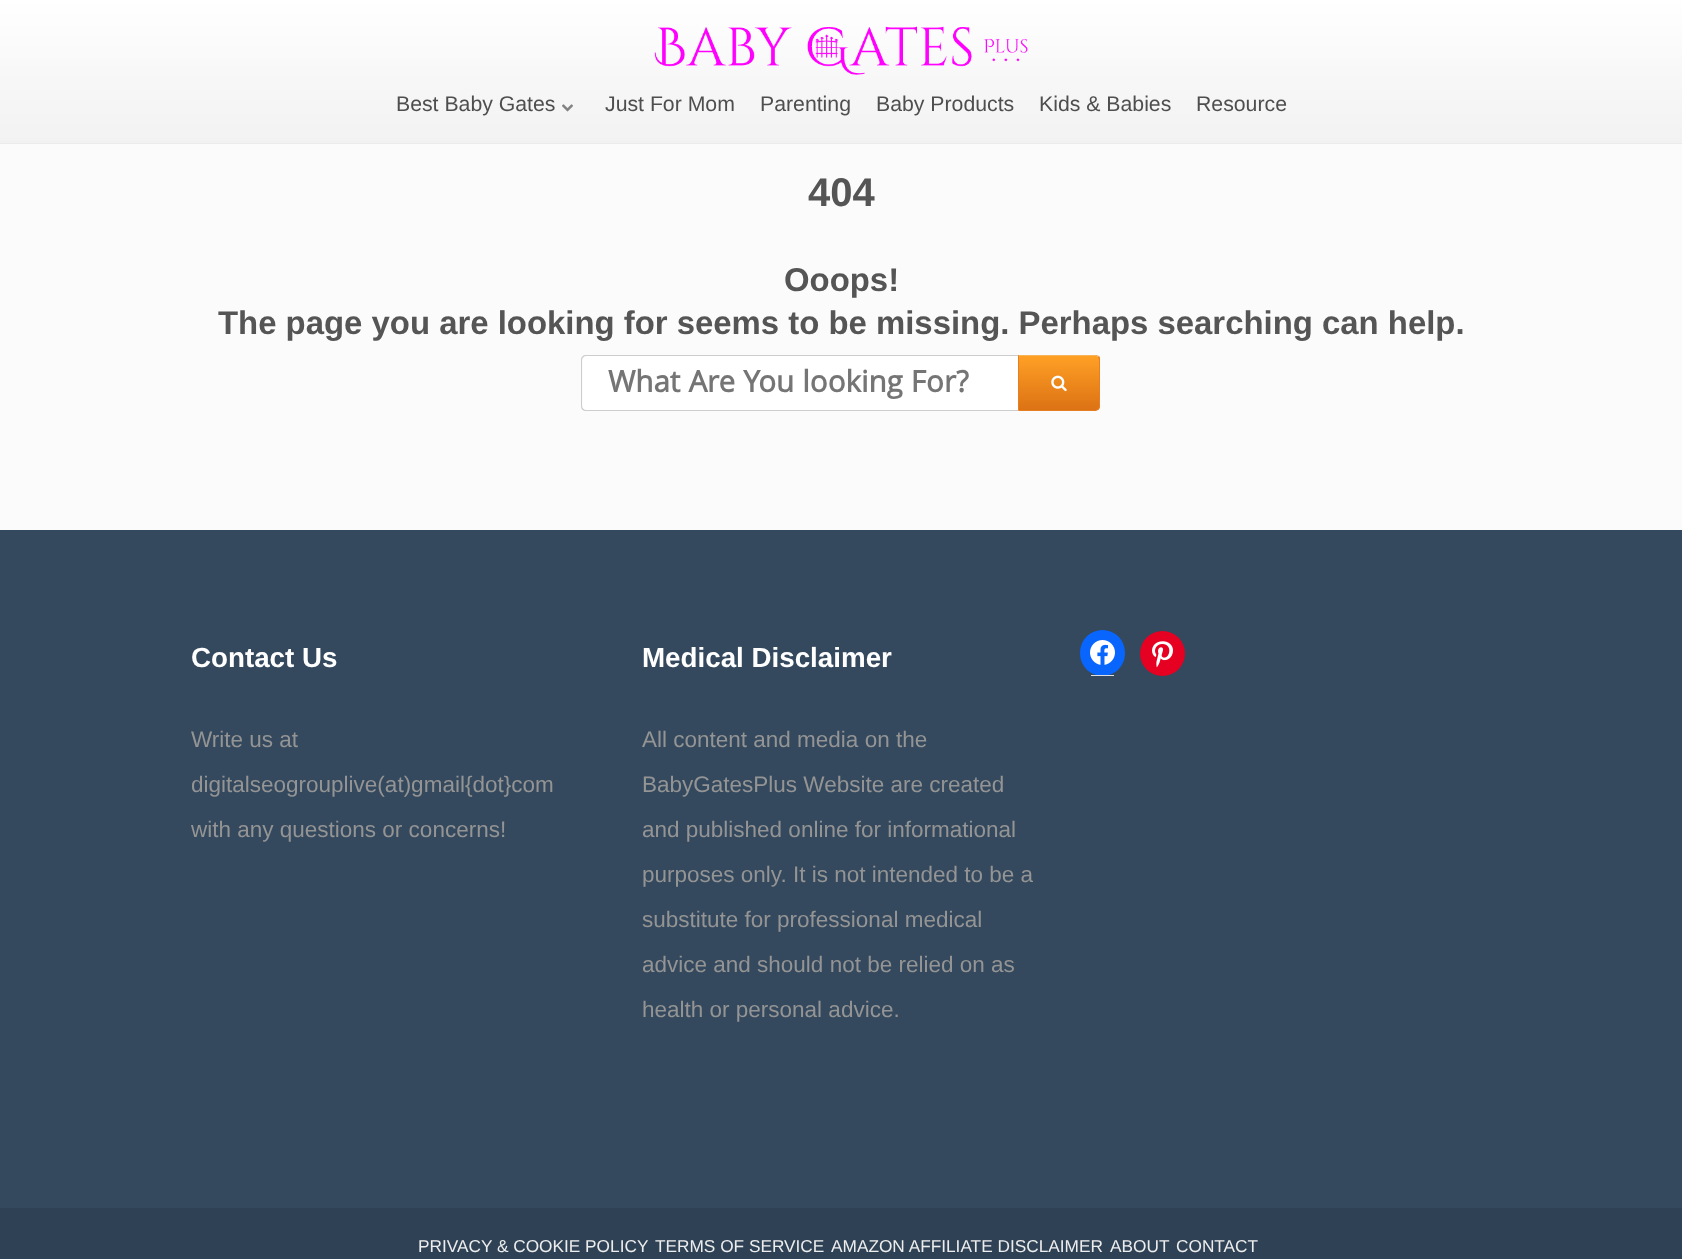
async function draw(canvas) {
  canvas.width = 1682
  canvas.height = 1259
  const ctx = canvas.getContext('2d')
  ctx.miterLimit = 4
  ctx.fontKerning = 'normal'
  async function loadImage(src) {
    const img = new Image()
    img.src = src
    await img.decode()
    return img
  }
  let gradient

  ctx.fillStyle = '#fbfbfb'
  ctx.fillRect(0, 0, 1682, 1259)
  gradient = ctx.createLinearGradient(841, 0, 841, 143)
  gradient.addColorStop(0, '#fff')
  gradient.addColorStop(0.5, '#f8f8f8')
  gradient.addColorStop(1, '#f2f2f2')
  ctx.fillStyle = gradient
  ctx.fillRect(0, 0, 1682, 143)
  ctx.fillStyle = '#ebebeb'
  ctx.fillRect(0, 143, 1682, 1)
  ctx.drawImage(await loadImage('image0.png'), 654, 26, 374, 49)
  ctx.font = '21.25px Liberation Sans'
  ctx.fillStyle = '#4e4e4e'
  ctx.fillText('Best Baby Gates', 396, 111)
  ctx.drawImage(await loadImage('image1.png'), 562, 104, 11, 8)
  ctx.fillText('Just For Mom', 605, 111)
  ctx.fillText('Parenting', 760, 111)
  ctx.fillText('Baby Products', 876, 111)
  ctx.fillText('Kids & Babies', 1039, 111)
  ctx.fillText('Resource', 1196, 111)
  ctx.font = 'bold 40px Liberation Sans'
  ctx.fillStyle = '#555'
  ctx.fillText('404', 808, 206)
  ctx.font = 'bold 32.9px Liberation Sans'
  ctx.fillText('Ooops!', 784, 291)
  ctx.fillText('The page you are looking for seems to be missing. Perhaps searching can help.', 218, 334)
  ctx.fillStyle = '#fff'
  ctx.beginPath()
  ctx.roundRect(583, 356, 435, 54, [4, 0, 0, 4])
  ctx.fill()
  ctx.fillStyle = '#cdcdcd'
  ctx.beginPath()
  ctx.moveTo(586, 355)
  ctx.lineTo(1018, 355)
  ctx.lineTo(1018, 411)
  ctx.lineTo(586, 411)
  ctx.bezierCurveTo(583, 411, 581, 409, 581, 406)
  ctx.lineTo(581, 360)
  ctx.bezierCurveTo(581, 357, 583, 355, 586, 355)
  ctx.closePath()
  ctx.moveTo(586, 356)
  ctx.lineTo(1018, 356)
  ctx.lineTo(1018, 410)
  ctx.lineTo(586, 410)
  ctx.bezierCurveTo(584, 410, 582, 408, 582, 406)
  ctx.lineTo(582, 360)
  ctx.bezierCurveTo(582, 358, 584, 356, 586, 356)
  ctx.closePath()
  ctx.fill('evenodd')
  ctx.wordSpacing = '0.5px'
  ctx.font = 'bold 29.5px Open Sans'
  ctx.fillStyle = '#757575'
  ctx.fillText('What Are You looking For?', 608, 392)
  ctx.save()
  ctx.beginPath()
  ctx.roundRect(1018, 355, 82, 56, [0, 5, 5, 0])
  ctx.clip()
  gradient = ctx.createLinearGradient(1059, 303, 1059, 356)
  gradient.addColorStop(0, '#ffa025')
  gradient.addColorStop(1, '#dc7214')
  ctx.fillStyle = gradient
  ctx.fillRect(1018, 355, 82, 1)
  gradient = ctx.createLinearGradient(1059, 356, 1059, 410)
  gradient.addColorStop(0, '#ffa025')
  gradient.addColorStop(1, '#dc7214')
  ctx.fillStyle = gradient
  ctx.fillRect(1019, 356, 81, 54)
  ctx.restore()
  ctx.fillStyle = '#f7b559'
  ctx.beginPath()
  ctx.moveTo(1018, 355)
  ctx.lineTo(1019, 356)
  ctx.lineTo(1095, 356)
  ctx.lineTo(1098, 357)
  ctx.lineTo(1099, 356)
  ctx.bezierCurveTo(1098, 356, 1096, 355, 1095, 355)
  ctx.closePath()
  ctx.fill()
  ctx.fillStyle = '#e67e22'
  ctx.beginPath()
  ctx.moveTo(1100, 406)
  ctx.lineTo(1100, 360)
  ctx.bezierCurveTo(1100, 358, 1100, 357, 1099, 356)
  ctx.lineTo(1098, 357)
  ctx.lineTo(1099, 360)
  ctx.lineTo(1099, 406)
  ctx.lineTo(1098, 409)
  ctx.lineTo(1098, 410)
  ctx.bezierCurveTo(1099, 409, 1100, 408, 1100, 406)
  ctx.closePath()
  ctx.fill()
  ctx.beginPath()
  ctx.moveTo(1098, 410)
  ctx.lineTo(1096, 411)
  ctx.lineTo(1018, 411)
  ctx.lineTo(1019, 410)
  ctx.lineTo(1095, 410)
  ctx.lineTo(1098, 409)
  ctx.closePath()
  ctx.fill()
  ctx.beginPath()
  ctx.moveTo(1018, 356)
  ctx.lineTo(1018, 411)
  ctx.lineTo(1019, 410)
  ctx.lineTo(1019, 356)
  ctx.closePath()
  ctx.fill()
  ctx.drawImage(await loadImage('image2.png'), 1051, 375, 16, 17)
  ctx.fillStyle = '#34495e'
  ctx.fillRect(0, 530, 1682, 678)
  ctx.wordSpacing = '0px'
  ctx.font = 'bold 27.75px Liberation Sans'
  ctx.fillStyle = '#fff'
  ctx.fillText('Contact Us', 191, 667)
  ctx.font = '22.5px Liberation Sans'
  ctx.fillStyle = '#949494'
  ctx.fillText('Write us at', 191, 747)
  ctx.fillText('digitalseogrouplive(at)gmail{dot}com', 191, 792)
  ctx.fillText('with any questions or concerns!', 191, 837)
  ctx.font = 'bold 27.75px Liberation Sans'
  ctx.fillStyle = '#fff'
  ctx.fillText('Medical Disclaimer', 642, 667)
  ctx.font = '22.5px Liberation Sans'
  ctx.fillStyle = '#949494'
  ctx.fillText('All content and media on the', 642, 747)
  ctx.fillText('BabyGatesPlus Website are created', 642, 792)
  ctx.fillText('and published online for informational', 642, 837)
  ctx.fillText('purposes only. It is not intended to be a', 642, 882)
  ctx.fillText('substitute for professional medical', 642, 927)
  ctx.fillText('advice and should not be relied on as', 642, 972)
  ctx.fillText('health or personal advice.', 642, 1017)
  ctx.fillStyle = '#0866ff'
  ctx.beginPath()
  ctx.roundRect(1080, 630, 45, 46, 22.5)
  ctx.fill()
  ctx.fillStyle = '#e2dfdf'
  ctx.fillRect(1091, 675, 23, 1)
  ctx.drawImage(await loadImage('image3.png'), 1090, 640, 25, 25)
  ctx.fillStyle = '#e60122'
  ctx.beginPath()
  ctx.arc(1162.5, 653.5, 22.5, 0, 2 * Math.PI)
  ctx.fill()
  ctx.drawImage(await loadImage('image4.png'), 1152, 641, 21, 27)
  ctx.fillStyle = '#2f4255'
  ctx.fillRect(0, 1208, 1682, 51)
  ctx.font = '17.25px Liberation Sans'
  ctx.fillStyle = '#ededed'
  ctx.fillText('PRIVACY & COOKIE POLICY', 418, 1252)
  ctx.fillText('TERMS OF SERVICE', 655, 1252)
  ctx.fillText('AMAZON AFFILIATE DISCLAIMER', 831, 1252)
  ctx.fillText('ABOUT', 1110, 1252)
  ctx.fillText('CONTACT', 1176, 1252)
}

draw(document.querySelector('canvas'))
